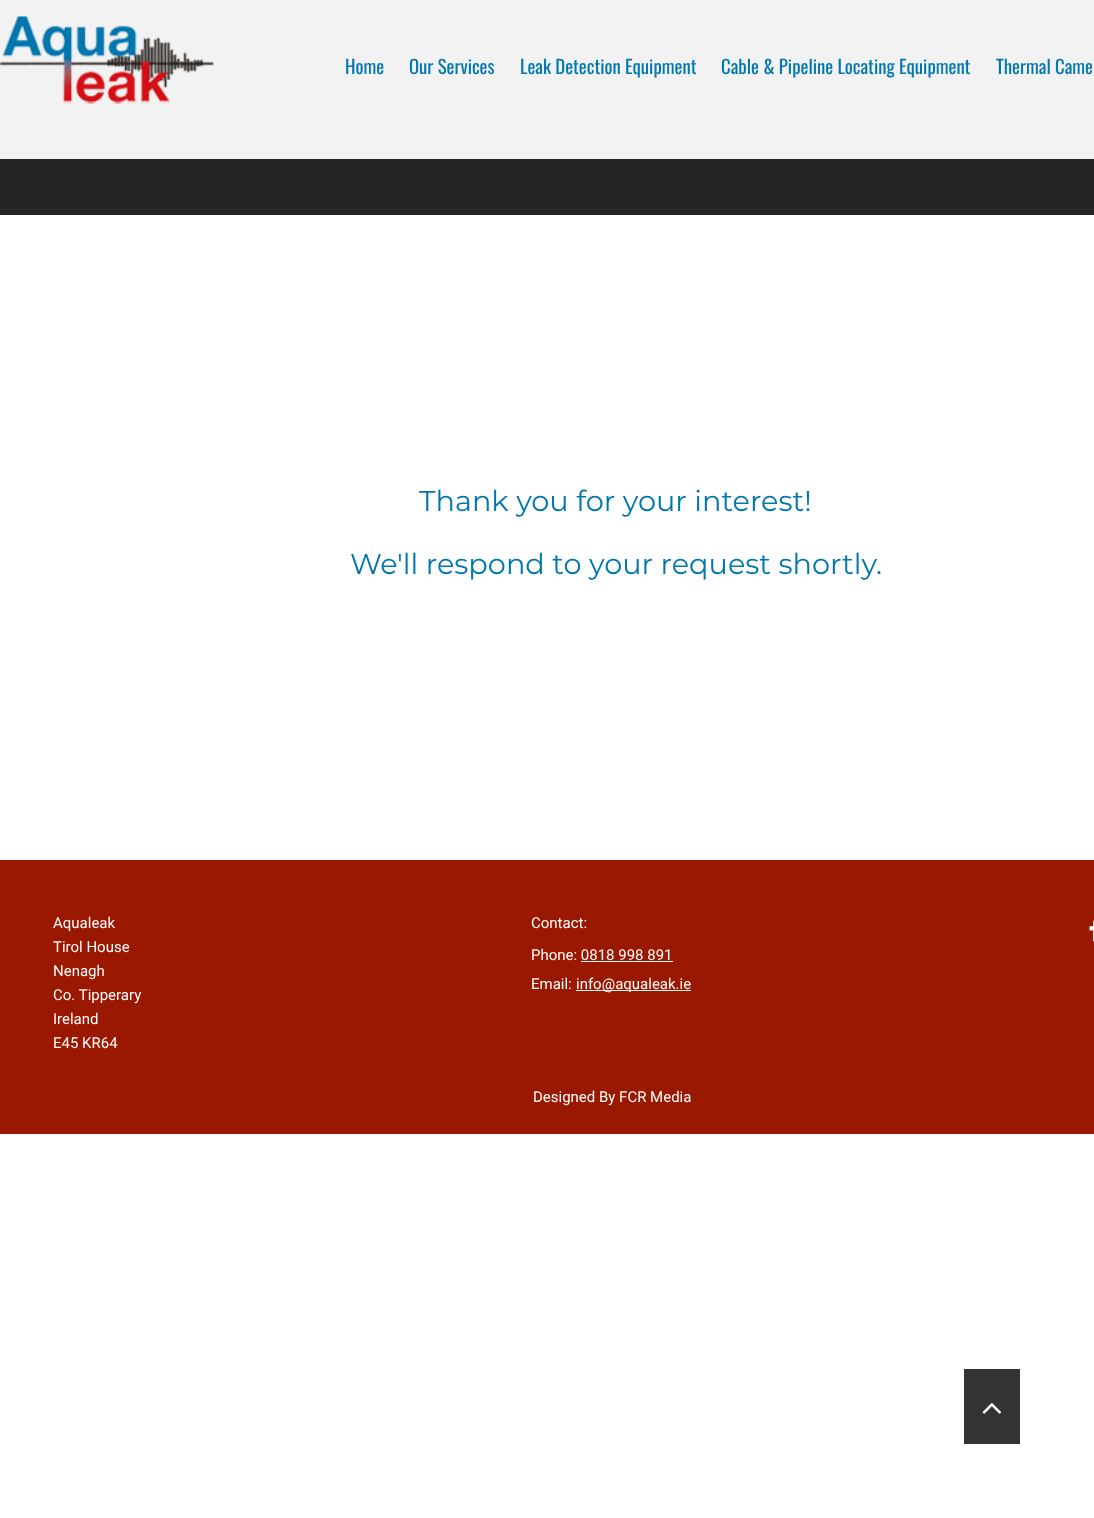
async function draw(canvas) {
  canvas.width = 1094
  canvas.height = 1518
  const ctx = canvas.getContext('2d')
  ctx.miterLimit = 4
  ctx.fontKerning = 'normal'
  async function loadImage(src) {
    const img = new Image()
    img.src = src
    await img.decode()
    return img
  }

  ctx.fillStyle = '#fff'
  ctx.fillRect(0, 0, 1094, 1518)
  ctx.fillStyle = '#f2f2f2'
  ctx.fillRect(0, 0, 1094, 159)
  ctx.drawImage(await loadImage('image0.png'), 0, 16, 214, 88)
  ctx.font = '18.75px Oswald'
  ctx.fillStyle = '#0077af'
  ctx.fillText('Home', 345, 74)
  ctx.fillText('Our Services', 409, 74)
  ctx.fillText('Leak Detection Equipment', 520, 74)
  ctx.fillText('Cable & Pipeline Locating Equipment', 721, 74)
  ctx.fillText('Thermal Came', 996, 74)
  ctx.fillStyle = '#252525'
  ctx.fillRect(0, 159, 1094, 56)
  ctx.font = '28.75px Montserrat'
  ctx.fillStyle = '#0077af'
  ctx.fillText('Thank you for your interest!', 419, 511)
  ctx.fillText('We\'ll respond to your request shortly.', 350, 574)
  ctx.fillStyle = '#9a1700'
  ctx.fillRect(0, 860, 1094, 274)
  ctx.font = '15px Roboto'
  ctx.fillStyle = '#fff'
  ctx.fillText('Aqualeak', 53, 928)
  ctx.fillText('Tirol House', 53, 952)
  ctx.fillText('Nenagh', 53, 976)
  ctx.fillText('Co. Tipperary', 53, 1000)
  ctx.fillText('Ireland', 53, 1024)
  ctx.fillText('E45 KR64', 53, 1048)
  ctx.fillText('Contact:', 531, 928)
  ctx.drawImage(await loadImage('image1.png'), 1089, 919, 5, 23)
  ctx.fillText('Phone: 0818 998 891', 531, 960)
  ctx.fillRect(581, 961, 92, 1)
  ctx.fillText('Email:', 531, 989)
  ctx.fillRect(576, 990, 115, 1)
  ctx.fillText('info@aqualeak.ie', 576, 989)
  ctx.fillText('Designed By FCR Media', 533, 1102)
  ctx.fillStyle = '#333'
  ctx.fillRect(964, 1369, 56, 75)
  ctx.drawImage(await loadImage('image2.png'), 982, 1403, 20, 11)
}

draw(document.querySelector('canvas'))
